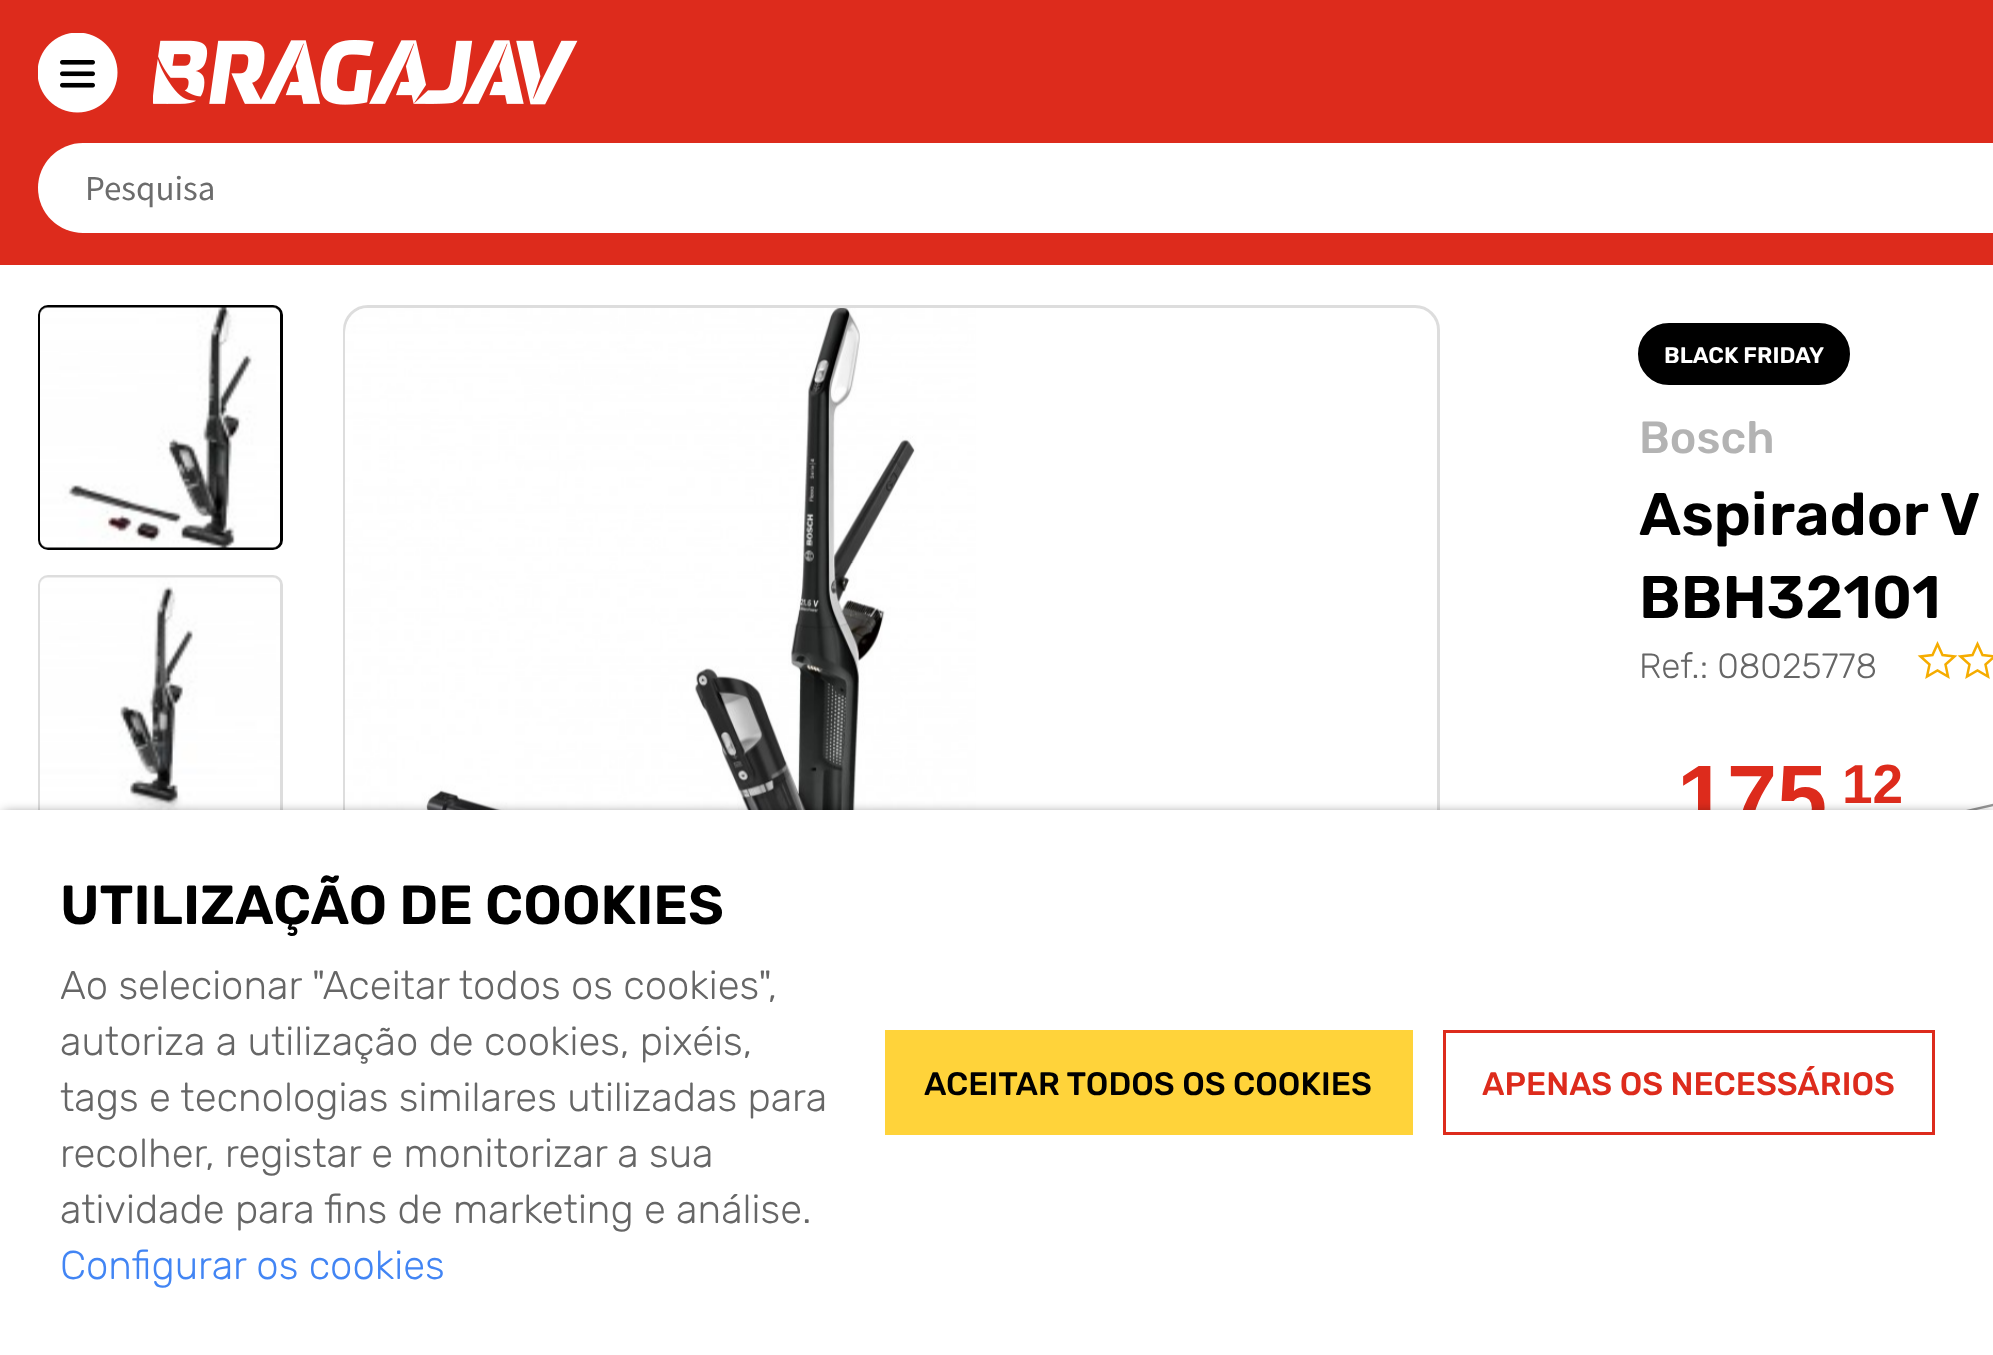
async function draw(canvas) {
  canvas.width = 1993
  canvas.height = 1355
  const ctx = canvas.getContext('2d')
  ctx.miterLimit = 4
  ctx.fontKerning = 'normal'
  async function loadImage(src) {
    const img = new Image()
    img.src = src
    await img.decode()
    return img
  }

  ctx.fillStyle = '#fff'
  ctx.fillRect(0, 0, 1993, 1355)
  ctx.fillStyle = '#dd2b1c'
  ctx.fillRect(0, 0, 1993, 265)
  ctx.drawImage(await loadImage('image0.png'), 38, 33, 80, 80)
  ctx.drawImage(await loadImage('image1.png'), 153, 40, 425, 65)
  ctx.fillStyle = '#fff'
  ctx.beginPath()
  ctx.roundRect(38, 143, 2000, 90, 45)
  ctx.fill()
  ctx.font = '35px Source Sans Pro'
  ctx.fillStyle = '#6c6c6c'
  ctx.fillText('Pesquisa', 85, 200)
  ctx.beginPath()
  ctx.roundRect(39.5, 306.5, 242, 242, 8.5)
  ctx.strokeStyle = '#000'
  ctx.lineWidth = 3
  ctx.stroke()
  ctx.drawImage(await loadImage('image2.png'), 40, 307, 240, 241)
  ctx.beginPath()
  ctx.roundRect(39.5, 576.5, 242, 242, 8.5)
  ctx.strokeStyle = '#ddd'
  ctx.stroke()
  ctx.drawImage(await loadImage('image3.png'), 40, 577, 240, 233)
  ctx.beginPath()
  ctx.roundRect(344.5, 306.5, 1094, 652, 23.5)
  ctx.stroke()
  ctx.drawImage(await loadImage('image4.png'), 345, 308, 631, 502)
  ctx.fillStyle = '#000'
  ctx.beginPath()
  ctx.roundRect(1639.5, 324.5, 209, 59, 29.5)
  ctx.fill()
  ctx.strokeStyle = '#000'
  ctx.stroke()
  ctx.font = '600 22.5px Rubik'
  ctx.fillStyle = '#fff'
  ctx.fillText('BLACK FRIDAY', 1664, 363)
  ctx.font = '300 45px Rubik'
  ctx.fillStyle = '#b3b3b3'
  ctx.fillText('Bosch', 1639, 453)
  ctx.font = '600 60px Rubik'
  ctx.fillStyle = '#000'
  ctx.fillText('Aspirador V', 1639, 535)
  ctx.fillText('BBH32101', 1639, 618)
  ctx.font = '300 35px "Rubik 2"'
  ctx.fillStyle = '#666'
  ctx.fillText('Ref.: 08025778', 1639, 678)
  ctx.beginPath()
  ctx.moveTo(1937.5, 644)
  ctx.lineTo(1942.5, 655)
  ctx.lineTo(1954.5, 656.5)
  ctx.lineTo(1945.5, 664.5)
  ctx.lineTo(1948, 676.5)
  ctx.lineTo(1937.5, 670.5)
  ctx.lineTo(1927, 676.5)
  ctx.lineTo(1929.5, 664.5)
  ctx.lineTo(1920.5, 656.5)
  ctx.lineTo(1932.5, 655)
  ctx.closePath()
  ctx.strokeStyle = '#f5ac00'
  ctx.lineWidth = 2.5
  ctx.stroke()
  ctx.beginPath()
  ctx.moveTo(1977.5, 644)
  ctx.lineTo(1982.5, 655)
  ctx.lineTo(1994.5, 656.5)
  ctx.lineTo(1985.5, 664.5)
  ctx.lineTo(1988, 676.5)
  ctx.lineTo(1977.5, 670.5)
  ctx.lineTo(1967, 676.5)
  ctx.lineTo(1969.5, 664.5)
  ctx.lineTo(1960.5, 656.5)
  ctx.lineTo(1972.5, 655)
  ctx.closePath()
  ctx.stroke()
  ctx.font = 'bold 90px Liberation Sans'
  ctx.fillStyle = '#dd2b1c'
  ctx.fillText('175', 1677, 828)
  ctx.font = 'bold 55px Liberation Sans'
  ctx.fillText('12', 1842, 803)
  ctx.fillStyle = '#979797'
  ctx.beginPath()
  ctx.moveTo(1923, 820)
  ctx.lineTo(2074, 785)
  ctx.lineTo(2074, 788)
  ctx.lineTo(1923, 822)
  ctx.closePath()
  ctx.fill()
  ctx.fillStyle = '#00000080'
  ctx.filter = 'blur(6px)'
  ctx.beginPath()
  ctx.rect(3, 813, 1990, 540)
  ctx.fill()
  ctx.filter = 'none'
  ctx.fillStyle = '#fff'
  ctx.fillRect(0, 810, 1993, 545)
  ctx.font = '600 55px Rubik'
  ctx.fillStyle = '#000'
  ctx.fillText('UTILIZAÇÃO DE COOKIES', 60, 924)
  ctx.font = '300 40px "Rubik 2"'
  ctx.fillStyle = '#666'
  ctx.fillText('Ao selecionar "Aceitar todos os cookies",', 60, 999)
  ctx.fillText('autoriza a utilização de cookies, pixéis,', 60, 1055)
  ctx.fillText('tags e tecnologias similares utilizadas para', 60, 1111)
  ctx.fillText('recolher, registar e monitorizar a sua', 60, 1167)
  ctx.fillText('atividade para fins de marketing e análise.', 60, 1223)
  ctx.fillStyle = '#4285f4'
  ctx.fillText('Configurar os cookies', 60, 1279)
  ctx.fillStyle = '#ffd33a'
  ctx.fillRect(885, 1030, 528, 105)
  ctx.font = '300 32.5px Rubik'
  ctx.fillStyle = '#000'
  ctx.fillText('ACEITAR TODOS OS COOKIES', 924, 1095)
  ctx.strokeStyle = '#dd2b1c'
  ctx.lineWidth = 3
  ctx.strokeRect(1444.5, 1031.5, 489, 102)
  ctx.fillStyle = '#dd2b1c'
  ctx.fillText('APENAS OS NECESSÁRIOS', 1482, 1095)
}

draw(document.querySelector('canvas'))
